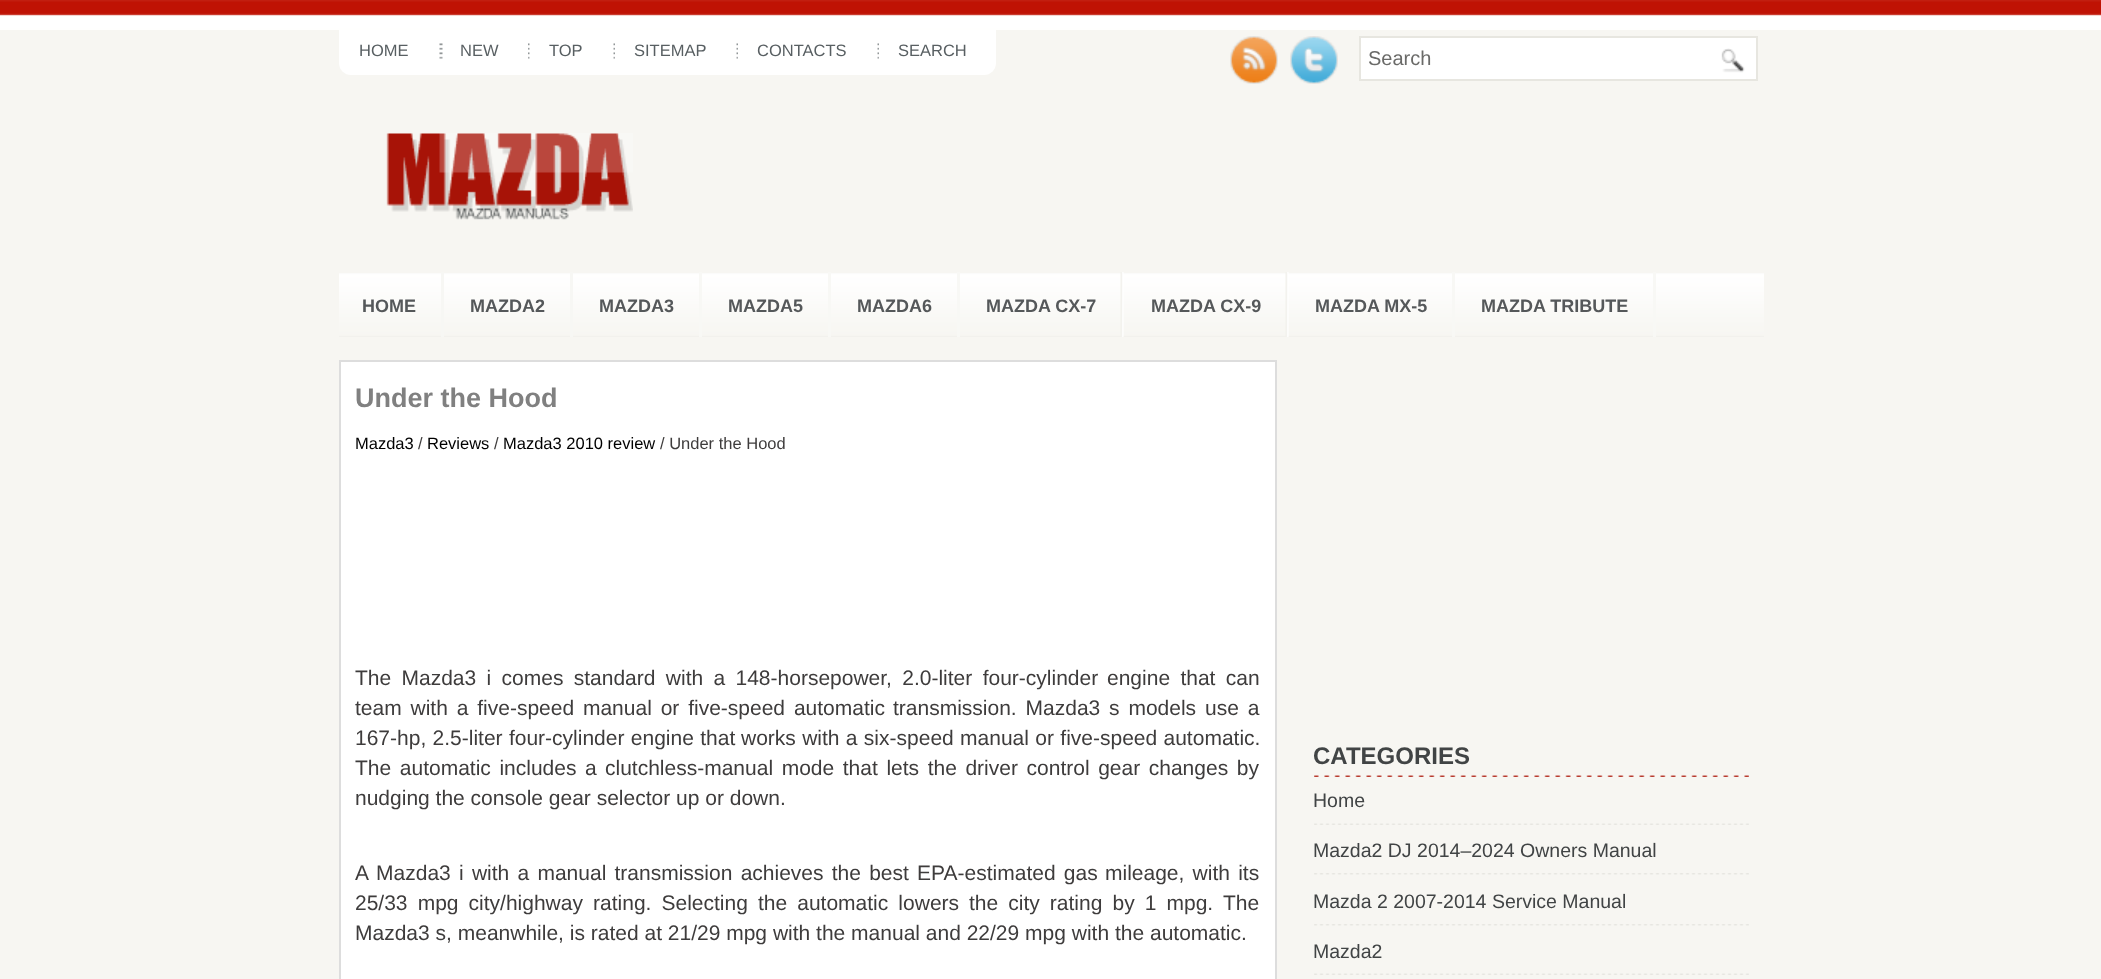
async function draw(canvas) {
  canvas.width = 2101
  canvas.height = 979
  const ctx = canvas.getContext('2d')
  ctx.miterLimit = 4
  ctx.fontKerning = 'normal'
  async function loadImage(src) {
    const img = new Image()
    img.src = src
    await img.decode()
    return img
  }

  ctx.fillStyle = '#f7f6f2'
  ctx.fillRect(0, 0, 2101, 979)
  ctx.drawImage(await loadImage('image0.png'), 0, 0, 2101, 30)
  ctx.fillStyle = '#fff'
  ctx.beginPath()
  ctx.roundRect(339, 30, 657, 45, [0, 0, 12, 12])
  ctx.fill()
  ctx.font = '16.5px Liberation Sans'
  ctx.fillStyle = '#585f62'
  ctx.fillText('HOME', 359, 56)
  ctx.drawImage(await loadImage('image1.png'), 439, 43, 4, 16)
  ctx.fillText('NEW', 460, 56)
  ctx.drawImage(await loadImage('image2.png'), 528, 43, 2, 16)
  ctx.fillText('TOP', 549, 56)
  ctx.drawImage(await loadImage('image3.png'), 613, 43, 2, 16)
  ctx.fillText('SITEMAP', 634, 56)
  ctx.drawImage(await loadImage('image3.png'), 736, 43, 2, 16)
  ctx.fillText('CONTACTS', 757, 56)
  ctx.drawImage(await loadImage('image3.png'), 877, 43, 2, 16)
  ctx.fillText('SEARCH', 898, 56)
  ctx.drawImage(await loadImage('image4.png'), 1230, 36, 48, 48)
  ctx.drawImage(await loadImage('image5.png'), 1290, 36, 48, 48)
  ctx.fillStyle = '#fff'
  ctx.beginPath()
  ctx.rect(1360, 37, 397, 43)
  ctx.fill()
  ctx.strokeStyle = '#e7e6e0'
  ctx.lineWidth = 2
  ctx.stroke()
  ctx.font = '20px Liberation Sans'
  ctx.fillStyle = '#6a6a68'
  ctx.fillText('Search', 1368, 65)
  ctx.drawImage(await loadImage('image6.png'), 1721, 48, 24, 25)
  ctx.drawImage(await loadImage('image7.png'), 386, 133, 247, 87)
  ctx.drawImage(await loadImage('image8.png'), 339, 273, 1425, 64)
  ctx.fillStyle = '#f7f7f4'
  ctx.fillRect(441, 272, 3, 65)
  ctx.font = 'bold 18px Liberation Sans'
  ctx.fillStyle = '#55585a'
  ctx.fillText('HOME', 362, 312)
  ctx.fillStyle = '#f7f7f4'
  ctx.fillRect(570, 272, 3, 65)
  ctx.fillStyle = '#55585a'
  ctx.fillText('MAZDA2', 470, 312)
  ctx.fillStyle = '#f8f8f5'
  ctx.fillRect(699, 272, 3, 65)
  ctx.fillStyle = '#55585a'
  ctx.fillText('MAZDA3', 599, 312)
  ctx.fillStyle = '#f8f8f5'
  ctx.fillRect(828, 272, 3, 65)
  ctx.fillStyle = '#55585a'
  ctx.fillText('MAZDA5', 728, 312)
  ctx.fillStyle = '#f8f8f5'
  ctx.fillRect(957, 272, 3, 65)
  ctx.fillStyle = '#55585a'
  ctx.fillText('MAZDA6', 857, 312)
  ctx.drawImage(await loadImage('image9.png'), 1120, 272, 4, 65)
  ctx.fillText('MAZDA CX-7', 986, 312)
  ctx.drawImage(await loadImage('image9.png'), 1285, 272, 4, 65)
  ctx.fillText('MAZDA CX-9', 1151, 312)
  ctx.fillStyle = '#f8f8f5'
  ctx.fillRect(1452, 272, 3, 65)
  ctx.fillStyle = '#55585a'
  ctx.fillText('MAZDA MX-5', 1315, 312)
  ctx.fillStyle = '#f8f8f5'
  ctx.fillRect(1653, 272, 3, 65)
  ctx.fillStyle = '#55585a'
  ctx.fillText('MAZDA TRIBUTE', 1481, 312)
  ctx.fillStyle = '#fff'
  ctx.beginPath()
  ctx.rect(340, 361, 936, 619)
  ctx.fill()
  ctx.strokeStyle = '#ddd'
  ctx.stroke()
  ctx.font = 'bold 27px Liberation Sans'
  ctx.fillStyle = '#808080'
  ctx.fillText('Under the Hood', 355, 407)
  ctx.font = '16.5px Liberation Sans'
  ctx.fillStyle = '#000'
  ctx.fillText('Mazda3', 355, 449)
  ctx.fillStyle = '#3e3c3c'
  ctx.fillText('/', 418, 449)
  ctx.fillStyle = '#000'
  ctx.fillText('Reviews', 427, 449)
  ctx.fillStyle = '#3e3c3c'
  ctx.fillText('/', 494, 449)
  ctx.fillStyle = '#000'
  ctx.fillText('Mazda3 2010 review', 503, 449)
  ctx.fillStyle = '#3e3c3c'
  ctx.fillText('/ Under the Hood', 660, 449)
  ctx.wordSpacing = '4.5px'
  ctx.font = '21px Liberation Sans'
  ctx.fillText('The Mazda3 i comes standard with a 148-horsepower, 2.0-liter four-cylinder', 355, 685)
  ctx.fillText('engine that can', 1107, 685)
  ctx.wordSpacing = '3px'
  ctx.fillText('team with a five-speed manual or five-speed automatic', 355, 715)
  ctx.fillText('transmission. Mazda3 s models use a', 893, 715)
  ctx.wordSpacing = '0.5px'
  ctx.fillText('167-hp, 2.5-liter four-cylinder engine that', 355, 745)
  ctx.fillText('works with a six-speed manual or five-speed automatic.', 741, 745)
  ctx.wordSpacing = '2.75px'
  ctx.fillText('The automatic includes a', 355, 775)
  ctx.fillText('clutchless-manual mode that lets the driver control gear changes by', 605, 775)
  ctx.wordSpacing = '0px'
  ctx.fillText('nudging the console gear selector up or down.', 355, 805)
  ctx.wordSpacing = '2.4px'
  ctx.fillText('A Mazda3 i with a manual transmission achieves the best EPA-estimated gas', 355, 880)
  ctx.fillText('mileage, with its', 1105, 880)
  ctx.wordSpacing = '4.25px'
  ctx.fillText('25/33 mpg city/highway rating. Selecting the automatic lowers', 355, 910)
  ctx.fillText('the city rating by 1 mpg. The', 969, 910)
  ctx.wordSpacing = '0px'
  ctx.fillText('Mazda3 s, meanwhile, is rated at 21/29 mpg with the manual and 22/29 mpg with the automatic.', 355, 940)
  ctx.drawImage(await loadImage('image10.png'), 1314, 775, 435, 2)
  ctx.font = 'bold 24px Liberation Sans'
  ctx.fillStyle = '#414445'
  ctx.fillText('CATEGORIES', 1313, 764)
  ctx.drawImage(await loadImage('image11.png'), 1314, 823, 435, 2)
  ctx.font = '19.5px Liberation Sans'
  ctx.fillText('Home', 1313, 807)
  ctx.drawImage(await loadImage('image12.png'), 1314, 873, 435, 2)
  ctx.fillText('Mazda2 DJ 2014–2024 Owners Manual', 1313, 857)
  ctx.drawImage(await loadImage('image12.png'), 1314, 924, 435, 2)
  ctx.fillText('Mazda 2 2007-2014 Service Manual', 1313, 908)
  ctx.drawImage(await loadImage('image11.png'), 1314, 973, 435, 2)
  ctx.fillText('Mazda2', 1313, 958)
}

draw(document.querySelector('canvas'))
